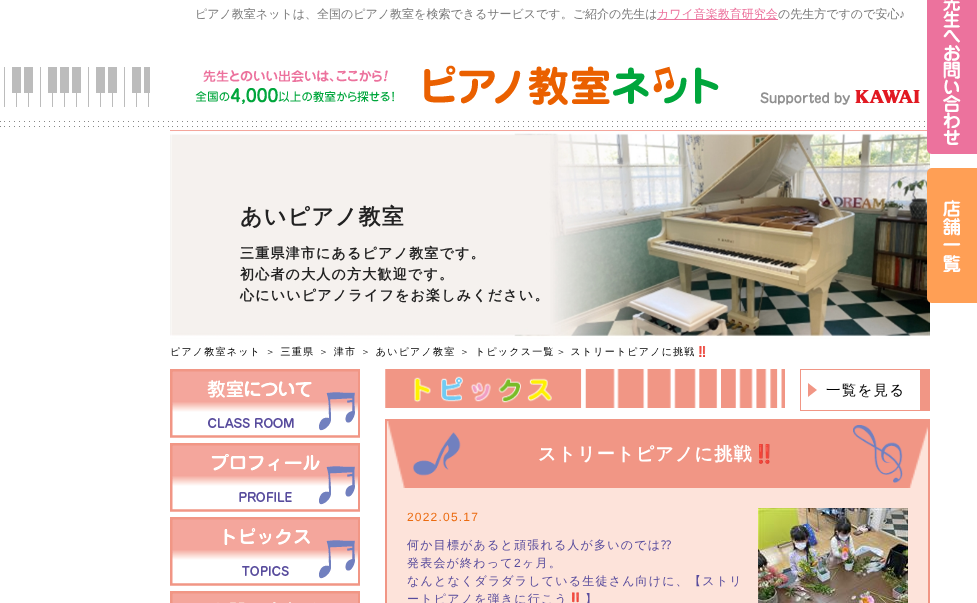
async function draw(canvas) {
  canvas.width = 977
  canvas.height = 603
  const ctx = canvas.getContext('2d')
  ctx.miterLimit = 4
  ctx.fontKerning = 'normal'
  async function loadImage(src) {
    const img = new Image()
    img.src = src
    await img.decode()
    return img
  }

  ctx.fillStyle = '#fff'
  ctx.fillRect(0, 0, 977, 603)
  ctx.drawImage(await loadImage('image0.png'), 0, 67, 927, 60)
  ctx.font = '500 12px WenQuanYi Zen Hei'
  ctx.fillStyle = '#7b7b7b'
  ctx.fillText('ピアノ教室ネットは、全国のピアノ教室を検索できるサービスです。ご紹介の先生は', 195, 18)
  ctx.fillStyle = '#ec729d'
  ctx.fillRect(657, 19, 121, 1)
  ctx.fillText('カワイ音楽教育研究会', 657, 18)
  ctx.fillStyle = '#7b7b7b'
  ctx.fillText('の先生方ですので安心', 778, 18)
  ctx.font = '12px Liberation Sans'
  ctx.fillText('♪', 899, 18)
  ctx.fillStyle = '#fff'
  ctx.fillRect(150, 67, 771, 40)
  ctx.drawImage(await loadImage('image1.png'), 195, 65, 524, 40)
  ctx.drawImage(await loadImage('image2.png'), 760, 90, 160, 15)
  ctx.drawImage(await loadImage('image5.png'), 170, 131, 760, 208)
  ctx.drawImage(await loadImage('image3.png'), 927, 0, 50, 154)
  ctx.drawImage(await loadImage('image4.png'), 927, 168, 50, 135)
  ctx.fillStyle = '#f4a69c'
  ctx.fillRect(170, 130, 757, 1)
  ctx.letterSpacing = '1.2px'
  ctx.font = 'bold 22px WenQuanYi Zen Hei'
  ctx.fillStyle = '#222'
  ctx.fillText('あいピアノ教室', 240, 224)
  ctx.font = 'bold 14px WenQuanYi Zen Hei'
  ctx.fillText('三重県津市にあるピアノ教室です。', 240, 258)
  ctx.fillText('初心者の大人の方大歓迎です。', 240, 279)
  ctx.fillText('心にいいピアノライフをお楽しみください。', 240, 300)
  ctx.font = '500 10px WenQuanYi Zen Hei'
  ctx.fillStyle = '#000'
  ctx.fillText('ピアノ教室ネット ＞ 三重県 ＞ 津市 ＞ あいピアノ教室 ＞ トピックス一覧', 170, 355)
  ctx.wordSpacing = '-1px'
  ctx.fillText('＞ ストリートピアノに挑戦', 556, 355)
  ctx.wordSpacing = '0px'
  ctx.font = '10px Noto Color Emoji'
  ctx.fillText('‼️', 696, 355)
  ctx.drawImage(await loadImage('image6.png'), 170, 369, 190, 69)
  ctx.drawImage(await loadImage('image7.png'), 170, 443, 190, 69)
  ctx.drawImage(await loadImage('image8.png'), 170, 517, 190, 69)
  ctx.drawImage(await loadImage('image9.png'), 170, 591, 190, 12)
  ctx.drawImage(await loadImage('image10.png'), 385, 369, 400, 39)
  ctx.fillStyle = '#f19685'
  ctx.fillRect(800, 369, 120, 1)
  ctx.fillRect(920, 369, 10, 41)
  ctx.fillRect(800, 410, 130, 1)
  ctx.fillRect(800, 369, 1, 42)
  ctx.beginPath()
  ctx.moveTo(808, 397)
  ctx.lineTo(808, 383)
  ctx.lineTo(817, 390)
  ctx.closePath()
  ctx.fill()
  ctx.font = '500 14.5px WenQuanYi Zen Hei'
  ctx.fillStyle = '#000'
  ctx.fillText('一覧を見る', 826, 395)
  ctx.fillStyle = '#fde3da'
  ctx.beginPath()
  ctx.rect(386, 420, 543, 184)
  ctx.fill()
  ctx.strokeStyle = '#f19685'
  ctx.lineWidth = 2
  ctx.stroke()
  ctx.drawImage(await loadImage('image11.png'), 387, 421, 541, 67)
  ctx.drawImage(await loadImage('image12.png'), 413, 432, 48, 44)
  ctx.font = 'bold 18px WenQuanYi Zen Hei'
  ctx.fillStyle = '#fff'
  ctx.fillText('ストリートピアノに挑戦', 538, 460)
  ctx.font = 'bold 18px Noto Color Emoji'
  ctx.fillText('‼️', 753, 460)
  ctx.drawImage(await loadImage('image13.png'), 853, 425, 50, 58)
  ctx.font = '12px Liberation Sans'
  ctx.fillStyle = '#eb6b10'
  ctx.fillText('2022.05.17', 407, 521)
  ctx.drawImage(await loadImage('image14.png'), 758, 508, 150, 95)
  ctx.font = '500 12px WenQuanYi Zen Hei'
  ctx.fillStyle = '#584c9d'
  ctx.fillText('何か目標があると頑張れる人が多いのでは', 407, 549)
  ctx.font = '12px Noto Sans'
  ctx.fillText('⁇', 661, 549)
  ctx.font = '500 12px WenQuanYi Zen Hei'
  ctx.fillText('発表会が終わって', 407, 567)
  ctx.font = '12px Liberation Sans'
  ctx.fillText('2', 514, 567)
  ctx.font = '500 12px WenQuanYi Zen Hei'
  ctx.fillText('ヶ月。', 522, 567)
  ctx.fillText('なんとなくダラダラしている生徒さん向けに、【ストリ', 407, 585)
  ctx.fillText('ートピアノを弾きに行こう', 407, 603)
  ctx.font = '12px Noto Color Emoji'
  ctx.fillText('‼️', 568, 603)
  ctx.font = '500 12px WenQuanYi Zen Hei'
  ctx.fillText('】', 585, 603)
}

draw(document.querySelector('canvas'))
